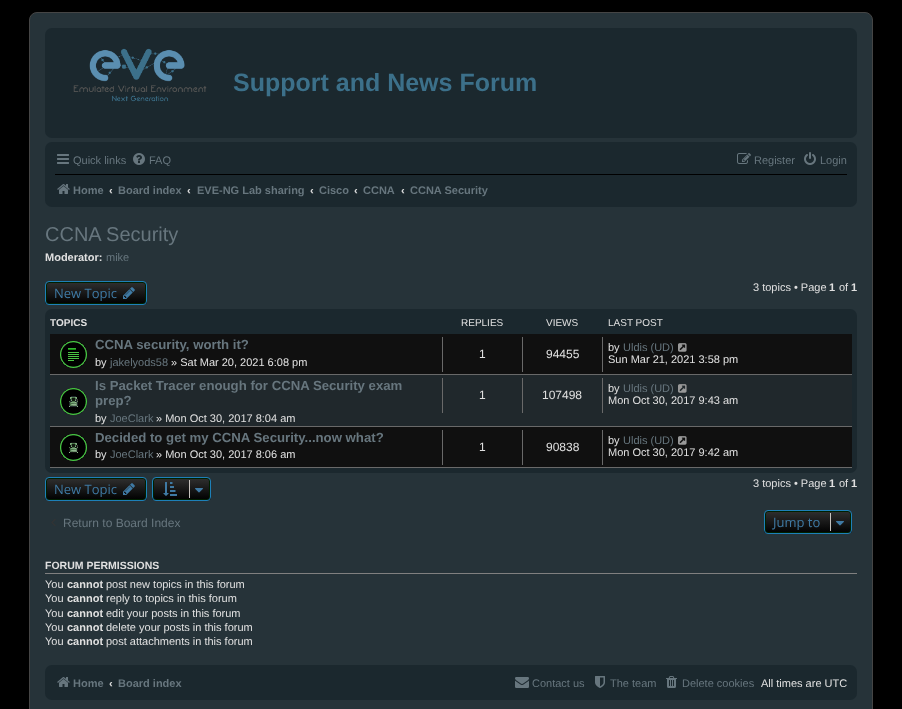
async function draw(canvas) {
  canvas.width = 902
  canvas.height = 709
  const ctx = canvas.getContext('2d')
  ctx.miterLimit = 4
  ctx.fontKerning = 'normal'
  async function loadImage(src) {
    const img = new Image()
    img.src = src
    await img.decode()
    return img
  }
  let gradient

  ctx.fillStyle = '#000'
  ctx.fillRect(0, 0, 902, 709)
  ctx.fillStyle = '#263339'
  ctx.beginPath()
  ctx.roundRect(29.5, 12.5, 843, 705, 7.5)
  ctx.fill()
  ctx.strokeStyle = '#454545'
  ctx.stroke()
  ctx.fillStyle = '#1b282e'
  ctx.beginPath()
  ctx.roundRect(45, 28, 812, 110, 7)
  ctx.fill()
  ctx.drawImage(await loadImage('image0.png'), 73, 48, 134, 54)
  ctx.font = 'bold 25px Liberation Sans'
  ctx.fillStyle = '#3c708a'
  ctx.fillText('Support and News Forum', 233, 91)
  ctx.fillStyle = '#1b282e'
  ctx.beginPath()
  ctx.roundRect(45, 142, 812, 65, 7)
  ctx.fill()
  ctx.drawImage(await loadImage('image1.png'), 57, 154, 12, 10)
  ctx.font = '11px Liberation Sans'
  ctx.fillStyle = '#67767e'
  ctx.fillText('Quick links', 73, 164)
  ctx.drawImage(await loadImage('image2.png'), 133, 153, 12, 12)
  ctx.fillText('FAQ', 149, 164)
  ctx.drawImage(await loadImage('image3.png'), 737, 153, 14, 11)
  ctx.fillText('Register', 754, 164)
  ctx.drawImage(await loadImage('image4.png'), 804, 152, 12, 13)
  ctx.fillText('Login', 820, 164)
  ctx.fillStyle = '#000'
  ctx.fillRect(55, 174, 792, 1)
  ctx.drawImage(await loadImage('image5.png'), 57, 184, 13, 10)
  ctx.font = 'bold 11px Liberation Sans'
  ctx.fillStyle = '#67767e'
  ctx.fillText('Home', 73, 194)
  ctx.fillStyle = '#e0e0e0'
  ctx.fillText('‹', 109, 194)
  ctx.fillStyle = '#67767e'
  ctx.fillText('Board index', 118, 194)
  ctx.fillStyle = '#e0e0e0'
  ctx.fillText('‹', 187, 194)
  ctx.fillStyle = '#67767e'
  ctx.fillText('EVE-NG Lab sharing', 197, 194)
  ctx.fillStyle = '#e0e0e0'
  ctx.fillText('‹', 310, 194)
  ctx.fillStyle = '#67767e'
  ctx.fillText('Cisco', 319, 194)
  ctx.fillStyle = '#e0e0e0'
  ctx.fillText('‹', 354, 194)
  ctx.fillStyle = '#67767e'
  ctx.fillText('CCNA', 363, 194)
  ctx.fillStyle = '#e0e0e0'
  ctx.fillText('‹', 401, 194)
  ctx.fillStyle = '#67767e'
  ctx.fillText('CCNA Security', 410, 194)
  ctx.font = '20px Liberation Sans'
  ctx.fillText('CCNA Security', 45, 241)
  ctx.font = 'bold 11px Liberation Sans'
  ctx.fillStyle = '#e0e0e0'
  ctx.fillText('Moderator:', 45, 261)
  ctx.font = '11px Liberation Sans'
  ctx.fillStyle = '#67767e'
  ctx.fillText('mike', 106, 261)
  ctx.save()
  ctx.beginPath()
  ctx.roundRect(45, 281, 102, 24, 4)
  ctx.clip()
  gradient = ctx.createLinearGradient(96, 282, 96, 304)
  gradient.addColorStop(0, '#303030')
  gradient.addColorStop(1, '#000')
  ctx.fillStyle = gradient
  ctx.fillRect(45, 282, 102, 22)
  ctx.restore()
  ctx.beginPath()
  ctx.roundRect(46.5, 282.5, 99, 21, 2.5)
  ctx.strokeStyle = '#002000'
  ctx.stroke()
  ctx.beginPath()
  ctx.roundRect(45.5, 281.5, 101, 23, 3.5)
  ctx.strokeStyle = '#1d80b8'
  ctx.stroke()
  ctx.font = '13px Open Sans'
  ctx.fillStyle = '#3f7aa4'
  ctx.fillText('New Topic', 54, 298)
  ctx.drawImage(await loadImage('image6.png'), 123, 287, 12, 12)
  ctx.font = '11px Liberation Sans'
  ctx.fillStyle = '#e0e0e0'
  ctx.fillText('3 topics • Page', 753, 291)
  ctx.font = 'bold 11px Liberation Sans'
  ctx.fillText('1', 829, 291)
  ctx.font = '11px Liberation Sans'
  ctx.fillText('of', 839, 291)
  ctx.font = 'bold 11px Liberation Sans'
  ctx.fillText('1', 851, 291)
  ctx.fillStyle = '#1b282e'
  ctx.beginPath()
  ctx.roundRect(45, 309, 812, 164, 7)
  ctx.fill()
  ctx.font = 'bold 10px Liberation Sans'
  ctx.fillStyle = '#e0e0e0'
  ctx.fillText('TOPICS', 50, 326)
  ctx.font = '10px Liberation Sans'
  ctx.fillText('REPLIES', 461, 326)
  ctx.fillText('VIEWS', 546, 326)
  ctx.fillText('LAST POST', 608, 326)
  ctx.fillStyle = '#101010'
  ctx.fillRect(50, 334, 802, 40)
  ctx.fillStyle = '#696969'
  ctx.fillRect(50, 374, 802, 1)
  ctx.drawImage(await loadImage('image7.png'), 60, 341, 27, 27)
  ctx.font = 'bold 13.2px Liberation Sans'
  ctx.fillStyle = '#67767e'
  ctx.fillText('CCNA security, worth it?', 95, 349)
  ctx.font = '11px Liberation Sans'
  ctx.fillStyle = '#e0e0e0'
  ctx.fillText('by', 95, 366)
  ctx.fillStyle = '#67767e'
  ctx.fillText('jakelyods58', 110, 366)
  ctx.fillStyle = '#e0e0e0'
  ctx.fillText('» Sat Mar 20, 2021 6:08 pm', 171, 366)
  ctx.fillStyle = '#696969'
  ctx.fillRect(442, 337, 1, 35)
  ctx.font = '12px Liberation Sans'
  ctx.fillStyle = '#e0e0e0'
  ctx.fillText('1', 479, 358)
  ctx.fillStyle = '#696969'
  ctx.fillRect(522, 337, 1, 35)
  ctx.fillStyle = '#e0e0e0'
  ctx.fillText('94455', 546, 358)
  ctx.fillStyle = '#696969'
  ctx.fillRect(602, 337, 1, 35)
  ctx.font = '11px Liberation Sans'
  ctx.fillStyle = '#e0e0e0'
  ctx.fillText('by', 608, 351)
  ctx.fillStyle = '#67767e'
  ctx.fillText('Uldis (UD)', 623, 351)
  ctx.drawImage(await loadImage('image8.png'), 678, 343, 9, 9)
  ctx.fillStyle = '#e0e0e0'
  ctx.fillText('Sun Mar 21, 2021 3:58 pm', 608, 363)
  ctx.fillStyle = '#20282c'
  ctx.fillRect(50, 375, 802, 51)
  ctx.fillStyle = '#696969'
  ctx.fillRect(50, 426, 802, 1)
  ctx.drawImage(await loadImage('image9.png'), 60, 388, 27, 27)
  ctx.font = 'bold 13.2px Liberation Sans'
  ctx.fillStyle = '#67767e'
  ctx.fillText('Is Packet Tracer enough for CCNA Security exam', 95, 390)
  ctx.fillText('prep?', 95, 405)
  ctx.font = '11px Liberation Sans'
  ctx.fillStyle = '#e0e0e0'
  ctx.fillText('by', 95, 422)
  ctx.fillStyle = '#67767e'
  ctx.fillText('JoeClark', 110, 422)
  ctx.fillStyle = '#e0e0e0'
  ctx.fillText('» Mon Oct 30, 2017 8:04 am', 156, 422)
  ctx.fillStyle = '#696969'
  ctx.fillRect(442, 378, 1, 35)
  ctx.font = '12px Liberation Sans'
  ctx.fillStyle = '#e0e0e0'
  ctx.fillText('1', 479, 399)
  ctx.fillStyle = '#696969'
  ctx.fillRect(522, 378, 1, 35)
  ctx.fillStyle = '#e0e0e0'
  ctx.fillText('107498', 542, 399)
  ctx.fillStyle = '#696969'
  ctx.fillRect(602, 378, 1, 35)
  ctx.font = '11px Liberation Sans'
  ctx.fillStyle = '#e0e0e0'
  ctx.fillText('by', 608, 392)
  ctx.fillStyle = '#67767e'
  ctx.fillText('Uldis (UD)', 623, 392)
  ctx.drawImage(await loadImage('image10.png'), 678, 384, 9, 9)
  ctx.fillStyle = '#e0e0e0'
  ctx.fillText('Mon Oct 30, 2017 9:43 am', 608, 404)
  ctx.fillStyle = '#101010'
  ctx.fillRect(50, 427, 802, 40)
  ctx.fillStyle = '#696969'
  ctx.fillRect(50, 467, 802, 1)
  ctx.drawImage(await loadImage('image11.png'), 60, 434, 27, 27)
  ctx.font = 'bold 13.2px Liberation Sans'
  ctx.fillStyle = '#67767e'
  ctx.fillText('Decided to get my CCNA Security...now what?', 95, 442)
  ctx.font = '11px Liberation Sans'
  ctx.fillStyle = '#e0e0e0'
  ctx.fillText('by', 95, 458)
  ctx.fillStyle = '#67767e'
  ctx.fillText('JoeClark', 110, 458)
  ctx.fillStyle = '#e0e0e0'
  ctx.fillText('» Mon Oct 30, 2017 8:06 am', 156, 458)
  ctx.fillStyle = '#696969'
  ctx.fillRect(442, 430, 1, 35)
  ctx.font = '12px Liberation Sans'
  ctx.fillStyle = '#e0e0e0'
  ctx.fillText('1', 479, 451)
  ctx.fillStyle = '#696969'
  ctx.fillRect(522, 430, 1, 35)
  ctx.fillStyle = '#e0e0e0'
  ctx.fillText('90838', 546, 451)
  ctx.fillStyle = '#696969'
  ctx.fillRect(602, 430, 1, 35)
  ctx.font = '11px Liberation Sans'
  ctx.fillStyle = '#e0e0e0'
  ctx.fillText('by', 608, 444)
  ctx.fillStyle = '#67767e'
  ctx.fillText('Uldis (UD)', 623, 444)
  ctx.drawImage(await loadImage('image8.png'), 678, 436, 9, 9)
  ctx.fillStyle = '#e0e0e0'
  ctx.fillText('Mon Oct 30, 2017 9:42 am', 608, 456)
  ctx.save()
  ctx.beginPath()
  ctx.roundRect(45, 477, 102, 24, 4)
  ctx.clip()
  gradient = ctx.createLinearGradient(96, 478, 96, 500)
  gradient.addColorStop(0, '#303030')
  gradient.addColorStop(1, '#000')
  ctx.fillStyle = gradient
  ctx.fillRect(45, 478, 102, 22)
  ctx.restore()
  ctx.beginPath()
  ctx.roundRect(46.5, 478.5, 99, 21, 2.5)
  ctx.strokeStyle = '#002000'
  ctx.stroke()
  ctx.beginPath()
  ctx.roundRect(45.5, 477.5, 101, 23, 3.5)
  ctx.strokeStyle = '#1d80b8'
  ctx.stroke()
  ctx.font = '13px Open Sans'
  ctx.fillStyle = '#3f7aa4'
  ctx.fillText('New Topic', 54, 494)
  ctx.drawImage(await loadImage('image6.png'), 123, 483, 12, 12)
  ctx.save()
  ctx.beginPath()
  ctx.roundRect(152, 477, 59, 24, 4)
  ctx.clip()
  gradient = ctx.createLinearGradient(182, 478, 182, 500)
  gradient.addColorStop(0, '#303030')
  gradient.addColorStop(1, '#000')
  ctx.fillStyle = gradient
  ctx.fillRect(152, 478, 59, 22)
  ctx.restore()
  ctx.beginPath()
  ctx.roundRect(153.5, 478.5, 56, 21, 2.5)
  ctx.strokeStyle = '#002000'
  ctx.stroke()
  ctx.beginPath()
  ctx.roundRect(152.5, 477.5, 58, 23, 3.5)
  ctx.strokeStyle = '#1d80b8'
  ctx.stroke()
  ctx.drawImage(await loadImage('image12.png'), 163, 482, 14, 14)
  ctx.fillStyle = '#c7c3bf'
  ctx.fillRect(189, 480, 1, 18)
  ctx.drawImage(await loadImage('image13.png'), 195, 488, 8, 5)
  ctx.font = '11px Liberation Sans'
  ctx.fillStyle = '#e0e0e0'
  ctx.fillText('3 topics • Page', 753, 487)
  ctx.font = 'bold 11px Liberation Sans'
  ctx.fillText('1', 829, 487)
  ctx.font = '11px Liberation Sans'
  ctx.fillText('of', 839, 487)
  ctx.font = 'bold 11px Liberation Sans'
  ctx.fillText('1', 851, 487)
  ctx.drawImage(await loadImage('image14.png'), 51, 519, 5, 7)
  ctx.font = '12px Liberation Sans'
  ctx.fillStyle = '#67767e'
  ctx.fillText('Return to Board Index', 63, 527)
  ctx.save()
  ctx.beginPath()
  ctx.roundRect(764, 510, 88, 24, 4)
  ctx.clip()
  gradient = ctx.createLinearGradient(808, 511, 808, 533)
  gradient.addColorStop(0, '#303030')
  gradient.addColorStop(1, '#000')
  ctx.fillStyle = gradient
  ctx.fillRect(764, 511, 88, 22)
  ctx.restore()
  ctx.beginPath()
  ctx.roundRect(765.5, 511.5, 85, 21, 2.5)
  ctx.strokeStyle = '#002000'
  ctx.stroke()
  ctx.beginPath()
  ctx.roundRect(764.5, 510.5, 87, 23, 3.5)
  ctx.strokeStyle = '#1d80b8'
  ctx.stroke()
  ctx.font = '13px Open Sans'
  ctx.fillStyle = '#3f7aa4'
  ctx.fillText('Jump to', 773, 527)
  ctx.fillStyle = '#c7c3bf'
  ctx.fillRect(830, 513, 1, 18)
  ctx.drawImage(await loadImage('image13.png'), 836, 521, 8, 5)
  ctx.fillStyle = '#808080'
  ctx.fillRect(45, 573, 812, 1)
  ctx.font = 'bold 10.5px Liberation Sans'
  ctx.fillStyle = '#e0e0e0'
  ctx.fillText('FORUM PERMISSIONS', 45, 569)
  ctx.font = '11px Liberation Sans'
  ctx.fillText('You', 45, 588)
  ctx.font = 'bold 11px Liberation Sans'
  ctx.fillText('cannot', 67, 588)
  ctx.font = '11px Liberation Sans'
  ctx.fillText('post new topics in this forum', 106, 588)
  ctx.fillText('You', 45, 602)
  ctx.font = 'bold 11px Liberation Sans'
  ctx.fillText('cannot', 67, 602)
  ctx.font = '11px Liberation Sans'
  ctx.fillText('reply to topics in this forum', 106, 602)
  ctx.fillText('You', 45, 617)
  ctx.font = 'bold 11px Liberation Sans'
  ctx.fillText('cannot', 67, 617)
  ctx.font = '11px Liberation Sans'
  ctx.fillText('edit your posts in this forum', 106, 617)
  ctx.fillText('You', 45, 631)
  ctx.font = 'bold 11px Liberation Sans'
  ctx.fillText('cannot', 67, 631)
  ctx.font = '11px Liberation Sans'
  ctx.fillText('delete your posts in this forum', 106, 631)
  ctx.fillText('You', 45, 645)
  ctx.font = 'bold 11px Liberation Sans'
  ctx.fillText('cannot', 67, 645)
  ctx.font = '11px Liberation Sans'
  ctx.fillText('post attachments in this forum', 106, 645)
  ctx.fillStyle = '#1b282e'
  ctx.beginPath()
  ctx.roundRect(45, 665, 812, 35, 7)
  ctx.fill()
  ctx.drawImage(await loadImage('image5.png'), 57, 677, 13, 10)
  ctx.font = 'bold 11px Liberation Sans'
  ctx.fillStyle = '#67767e'
  ctx.fillText('Home', 73, 687)
  ctx.fillStyle = '#e0e0e0'
  ctx.fillText('‹', 109, 687)
  ctx.fillStyle = '#67767e'
  ctx.fillText('Board index', 118, 687)
  ctx.drawImage(await loadImage('image15.png'), 515, 677, 14, 11)
  ctx.font = '11px Liberation Sans'
  ctx.fillText('Contact us', 532, 687)
  ctx.drawImage(await loadImage('image16.png'), 595, 676, 10, 12)
  ctx.fillText('The team', 610, 687)
  ctx.drawImage(await loadImage('image17.png'), 666, 676, 11, 12)
  ctx.fillText('Delete cookies', 682, 687)
  ctx.fillStyle = '#e0e0e0'
  ctx.fillText('All times are UTC', 761, 687)
}

draw(document.querySelector('canvas'))
